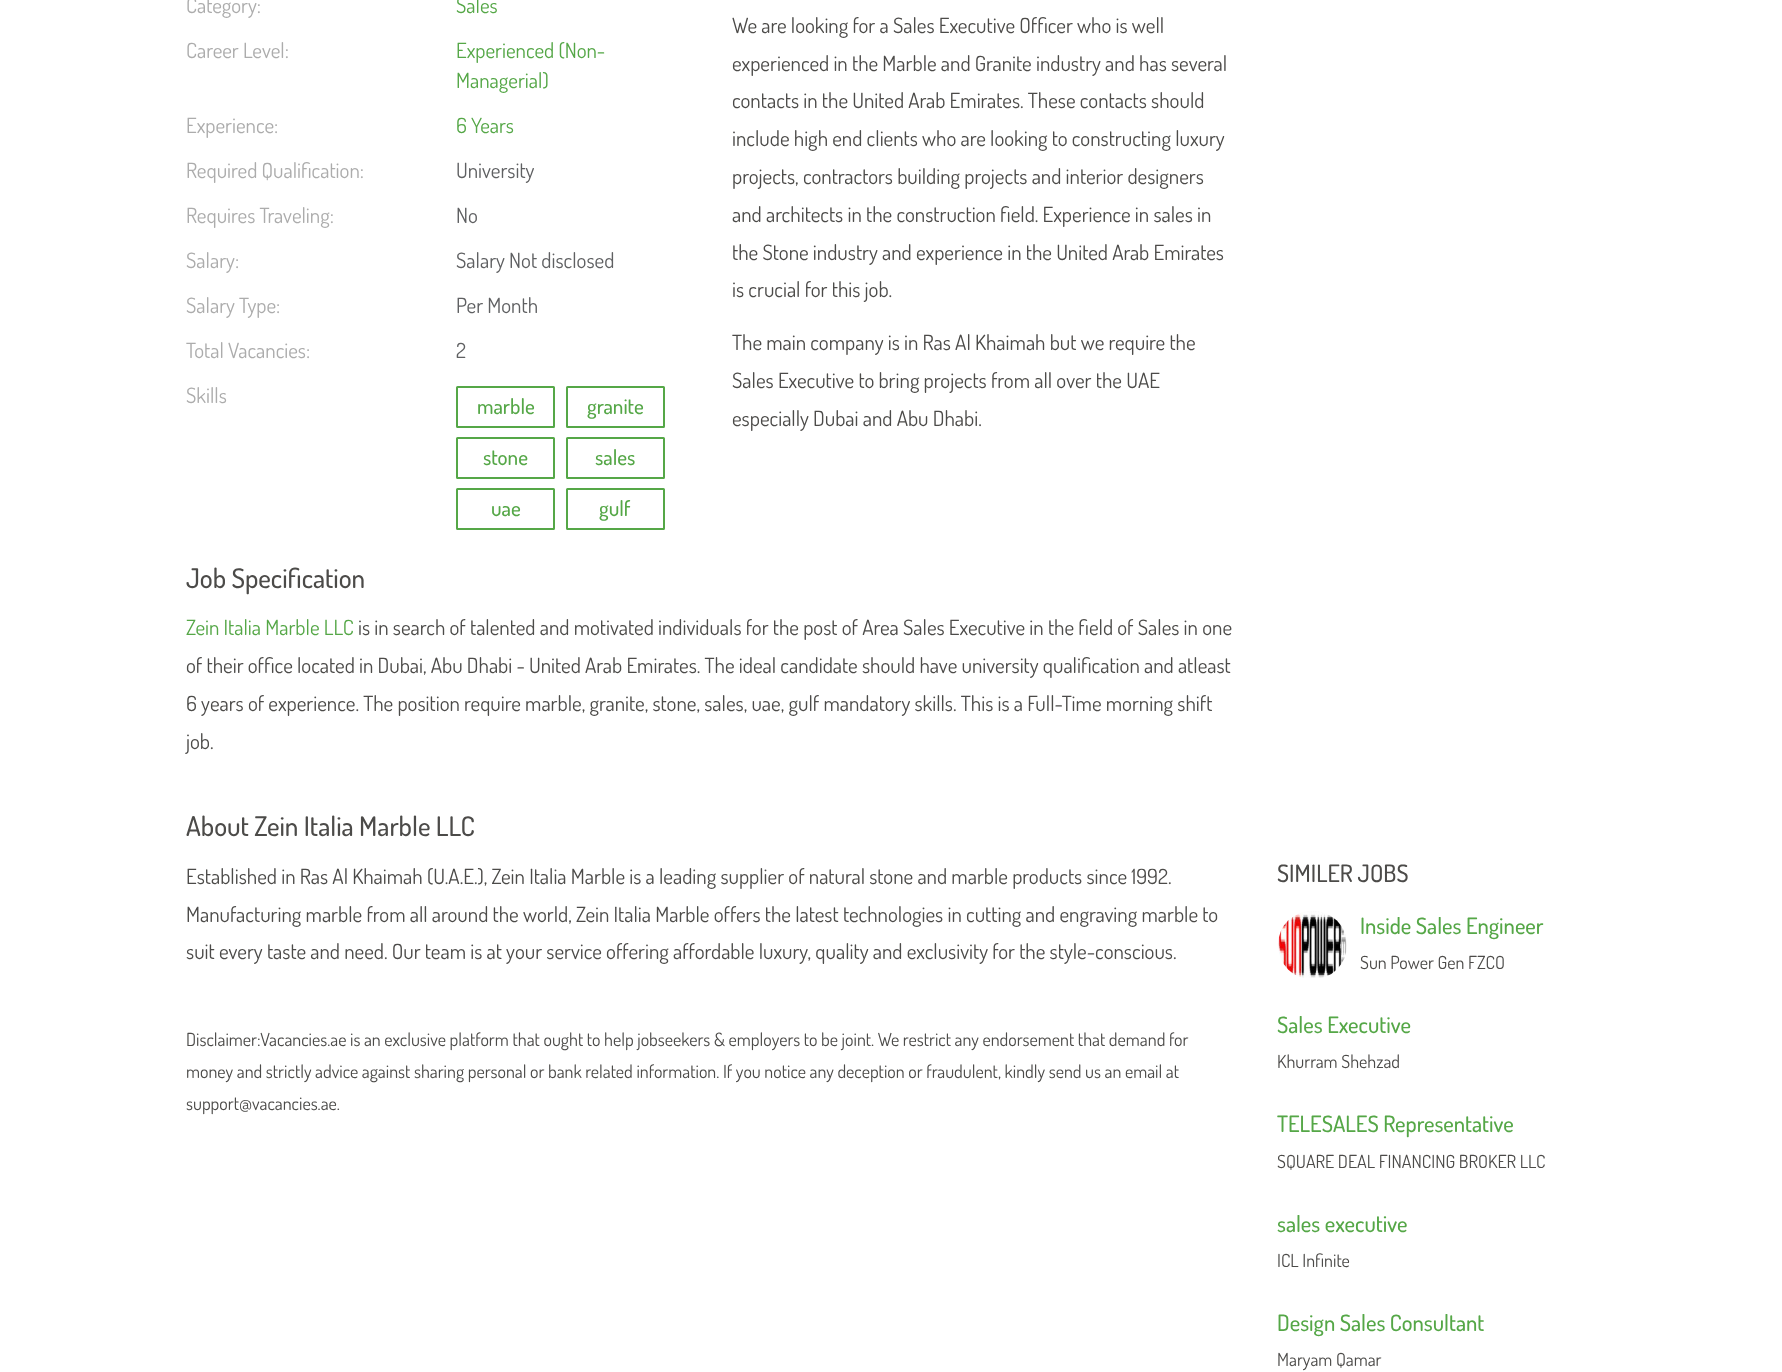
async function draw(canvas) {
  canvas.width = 1782
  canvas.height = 1372
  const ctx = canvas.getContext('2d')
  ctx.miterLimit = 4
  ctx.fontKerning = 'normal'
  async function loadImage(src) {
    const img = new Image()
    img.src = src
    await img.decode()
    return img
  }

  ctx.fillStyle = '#fff'
  ctx.fillRect(0, 0, 1782, 1372)
  ctx.font = '21px Dosis'
  ctx.fillStyle = '#acacac'
  ctx.fillText('Category:', 186, 13)
  ctx.fillStyle = '#55a747'
  ctx.fillText('Sales', 456, 13)
  ctx.fillStyle = '#acacac'
  ctx.fillText('Career Level:', 186, 58)
  ctx.fillStyle = '#55a747'
  ctx.fillText('Experienced (Non-', 456, 58)
  ctx.fillText('Managerial)', 456, 88)
  ctx.fillStyle = '#acacac'
  ctx.fillText('Experience:', 186, 133)
  ctx.fillStyle = '#55a747'
  ctx.fillText('6 Years', 456, 133)
  ctx.fillStyle = '#acacac'
  ctx.fillText('Required Qualification:', 186, 178)
  ctx.fillStyle = '#5f6062'
  ctx.fillText('University', 456, 178)
  ctx.fillStyle = '#acacac'
  ctx.fillText('Requires Traveling:', 186, 223)
  ctx.fillStyle = '#5f6062'
  ctx.fillText('No', 456, 223)
  ctx.fillStyle = '#acacac'
  ctx.fillText('Salary:', 186, 268)
  ctx.fillStyle = '#5f6062'
  ctx.fillText('Salary Not disclosed', 456, 268)
  ctx.fillStyle = '#acacac'
  ctx.fillText('Salary Type:', 186, 313)
  ctx.fillStyle = '#5f6062'
  ctx.fillText('Per Month', 456, 313)
  ctx.fillStyle = '#acacac'
  ctx.fillText('Total Vacancies:', 186, 358)
  ctx.fillStyle = '#5f6062'
  ctx.fillText('2', 456, 358)
  ctx.fillStyle = '#acacac'
  ctx.fillText('Skills', 186, 403)
  ctx.beginPath()
  ctx.roundRect(457, 387, 97, 40, 0.5)
  ctx.strokeStyle = '#55a747'
  ctx.lineWidth = 2
  ctx.stroke()
  ctx.font = '500 21px Dosis'
  ctx.fillStyle = '#55a747'
  ctx.fillText('marble', 477, 414)
  ctx.beginPath()
  ctx.roundRect(567, 387, 97, 40, 0.5)
  ctx.stroke()
  ctx.fillText('granite', 587, 414)
  ctx.beginPath()
  ctx.roundRect(457, 438, 97, 40, 0.5)
  ctx.stroke()
  ctx.fillText('stone', 483, 465)
  ctx.beginPath()
  ctx.roundRect(567, 438, 97, 40, 0.5)
  ctx.stroke()
  ctx.fillText('sales', 595, 465)
  ctx.beginPath()
  ctx.roundRect(457, 489, 97, 40, 0.5)
  ctx.stroke()
  ctx.fillText('uae', 491, 516)
  ctx.beginPath()
  ctx.roundRect(567, 489, 97, 40, 0.5)
  ctx.stroke()
  ctx.fillText('gulf', 599, 516)
  ctx.font = '21px Dosis'
  ctx.fillStyle = '#4c4b49'
  ctx.fillText('We are looking for a Sales Executive Officer who is well', 732, 33)
  ctx.fillText('experienced in the Marble and Granite industry and has several', 732, 71)
  ctx.fillText('contacts in the United Arab Emirates. These contacts should', 732, 108)
  ctx.fillText('include high end clients who are looking to constructing luxury', 732, 146)
  ctx.fillText('projects, contractors building projects and interior designers', 732, 184)
  ctx.fillText('and architects in the construction field. Experience in sales in', 732, 222)
  ctx.fillText('the Stone industry and experience in the United Arab Emirates', 732, 260)
  ctx.fillText('is crucial for this job.', 732, 297)
  ctx.fillText('The main company is in Ras Al Khaimah but we require the', 732, 350)
  ctx.fillText('Sales Executive to bring projects from all over the UAE', 732, 388)
  ctx.fillText('especially Dubai and Abu Dhabi.', 732, 426)
  ctx.font = '500 27px Dosis'
  ctx.fillText('Job Specification', 186, 588)
  ctx.font = '21px Dosis'
  ctx.fillStyle = '#55a747'
  ctx.fillText('Zein Italia Marble LLC', 186, 635)
  ctx.fillStyle = '#4c4b49'
  ctx.fillText('is in search of talented and motivated individuals for the post of Area Sales Executive in the field of Sales in one', 358, 635)
  ctx.fillText('of their office located in Dubai, Abu Dhabi - United Arab Emirates. The ideal candidate should have university qualification and atleast', 186, 673)
  ctx.fillText('6 years of experience. The position require marble, granite, stone, sales, uae, gulf mandatory skills. This is a Full-Time morning shift', 186, 711)
  ctx.fillText('job.', 186, 749)
  ctx.font = '500 27px Dosis'
  ctx.fillText('About Zein Italia Marble LLC', 186, 836)
  ctx.font = '21px Dosis'
  ctx.fillText('Established in Ras Al Khaimah (U.A.E.), Zein Italia Marble is a leading supplier of natural stone and marble products since 1992.', 186, 884)
  ctx.fillText('Manufacturing marble from all around the world, Zein Italia Marble offers the latest technologies in cutting and engraving marble to', 186, 922)
  ctx.fillText('suit every taste and need. Our team is at your service offering affordable luxury, quality and exclusivity for the style-conscious.', 186, 959)
  ctx.font = '18px Dosis'
  ctx.fillText('Disclaimer:Vacancies.ae is an exclusive platform that ought to help jobseekers & employers to be joint. We restrict any endorsement that demand for', 186, 1046)
  ctx.fillText('money and strictly advice against sharing personal or bank related information. If you notice any deception or fraudulent, kindly send us an email at', 186, 1078)
  ctx.fillText('support@vacancies.ae.', 186, 1110)
  ctx.font = '500 24px Dosis'
  ctx.fillText('SIMILER JOBS', 1277, 882)
  ctx.drawImage(await loadImage('image0.png'), 1278, 911, 69, 67)
  ctx.font = '500 22.5px Dosis'
  ctx.fillStyle = '#55a747'
  ctx.fillText('Inside Sales Engineer', 1360, 934)
  ctx.font = '18px Dosis'
  ctx.fillStyle = '#4c4b49'
  ctx.fillText('Sun Power Gen FZCO', 1360, 969)
  ctx.font = '500 22.5px Dosis'
  ctx.fillStyle = '#55a747'
  ctx.fillText('Sales Executive', 1277, 1033)
  ctx.font = '18px Dosis'
  ctx.fillStyle = '#4c4b49'
  ctx.fillText('Khurram Shehzad', 1277, 1068)
  ctx.font = '500 22.5px Dosis'
  ctx.fillStyle = '#55a747'
  ctx.fillText('TELESALES Representative', 1277, 1132)
  ctx.font = '18px Dosis'
  ctx.fillStyle = '#4c4b49'
  ctx.fillText('SQUARE DEAL FINANCING BROKER LLC', 1277, 1168)
  ctx.font = '500 22.5px Dosis'
  ctx.fillStyle = '#55a747'
  ctx.fillText('sales executive', 1277, 1232)
  ctx.font = '18px Dosis'
  ctx.fillStyle = '#4c4b49'
  ctx.fillText('ICL Infinite', 1277, 1267)
  ctx.font = '500 22.5px Dosis'
  ctx.fillStyle = '#55a747'
  ctx.fillText('Design Sales Consultant', 1277, 1331)
  ctx.font = '18px Dosis'
  ctx.fillStyle = '#4c4b49'
  ctx.fillText('Maryam Qamar', 1277, 1366)
}

draw(document.querySelector('canvas'))
